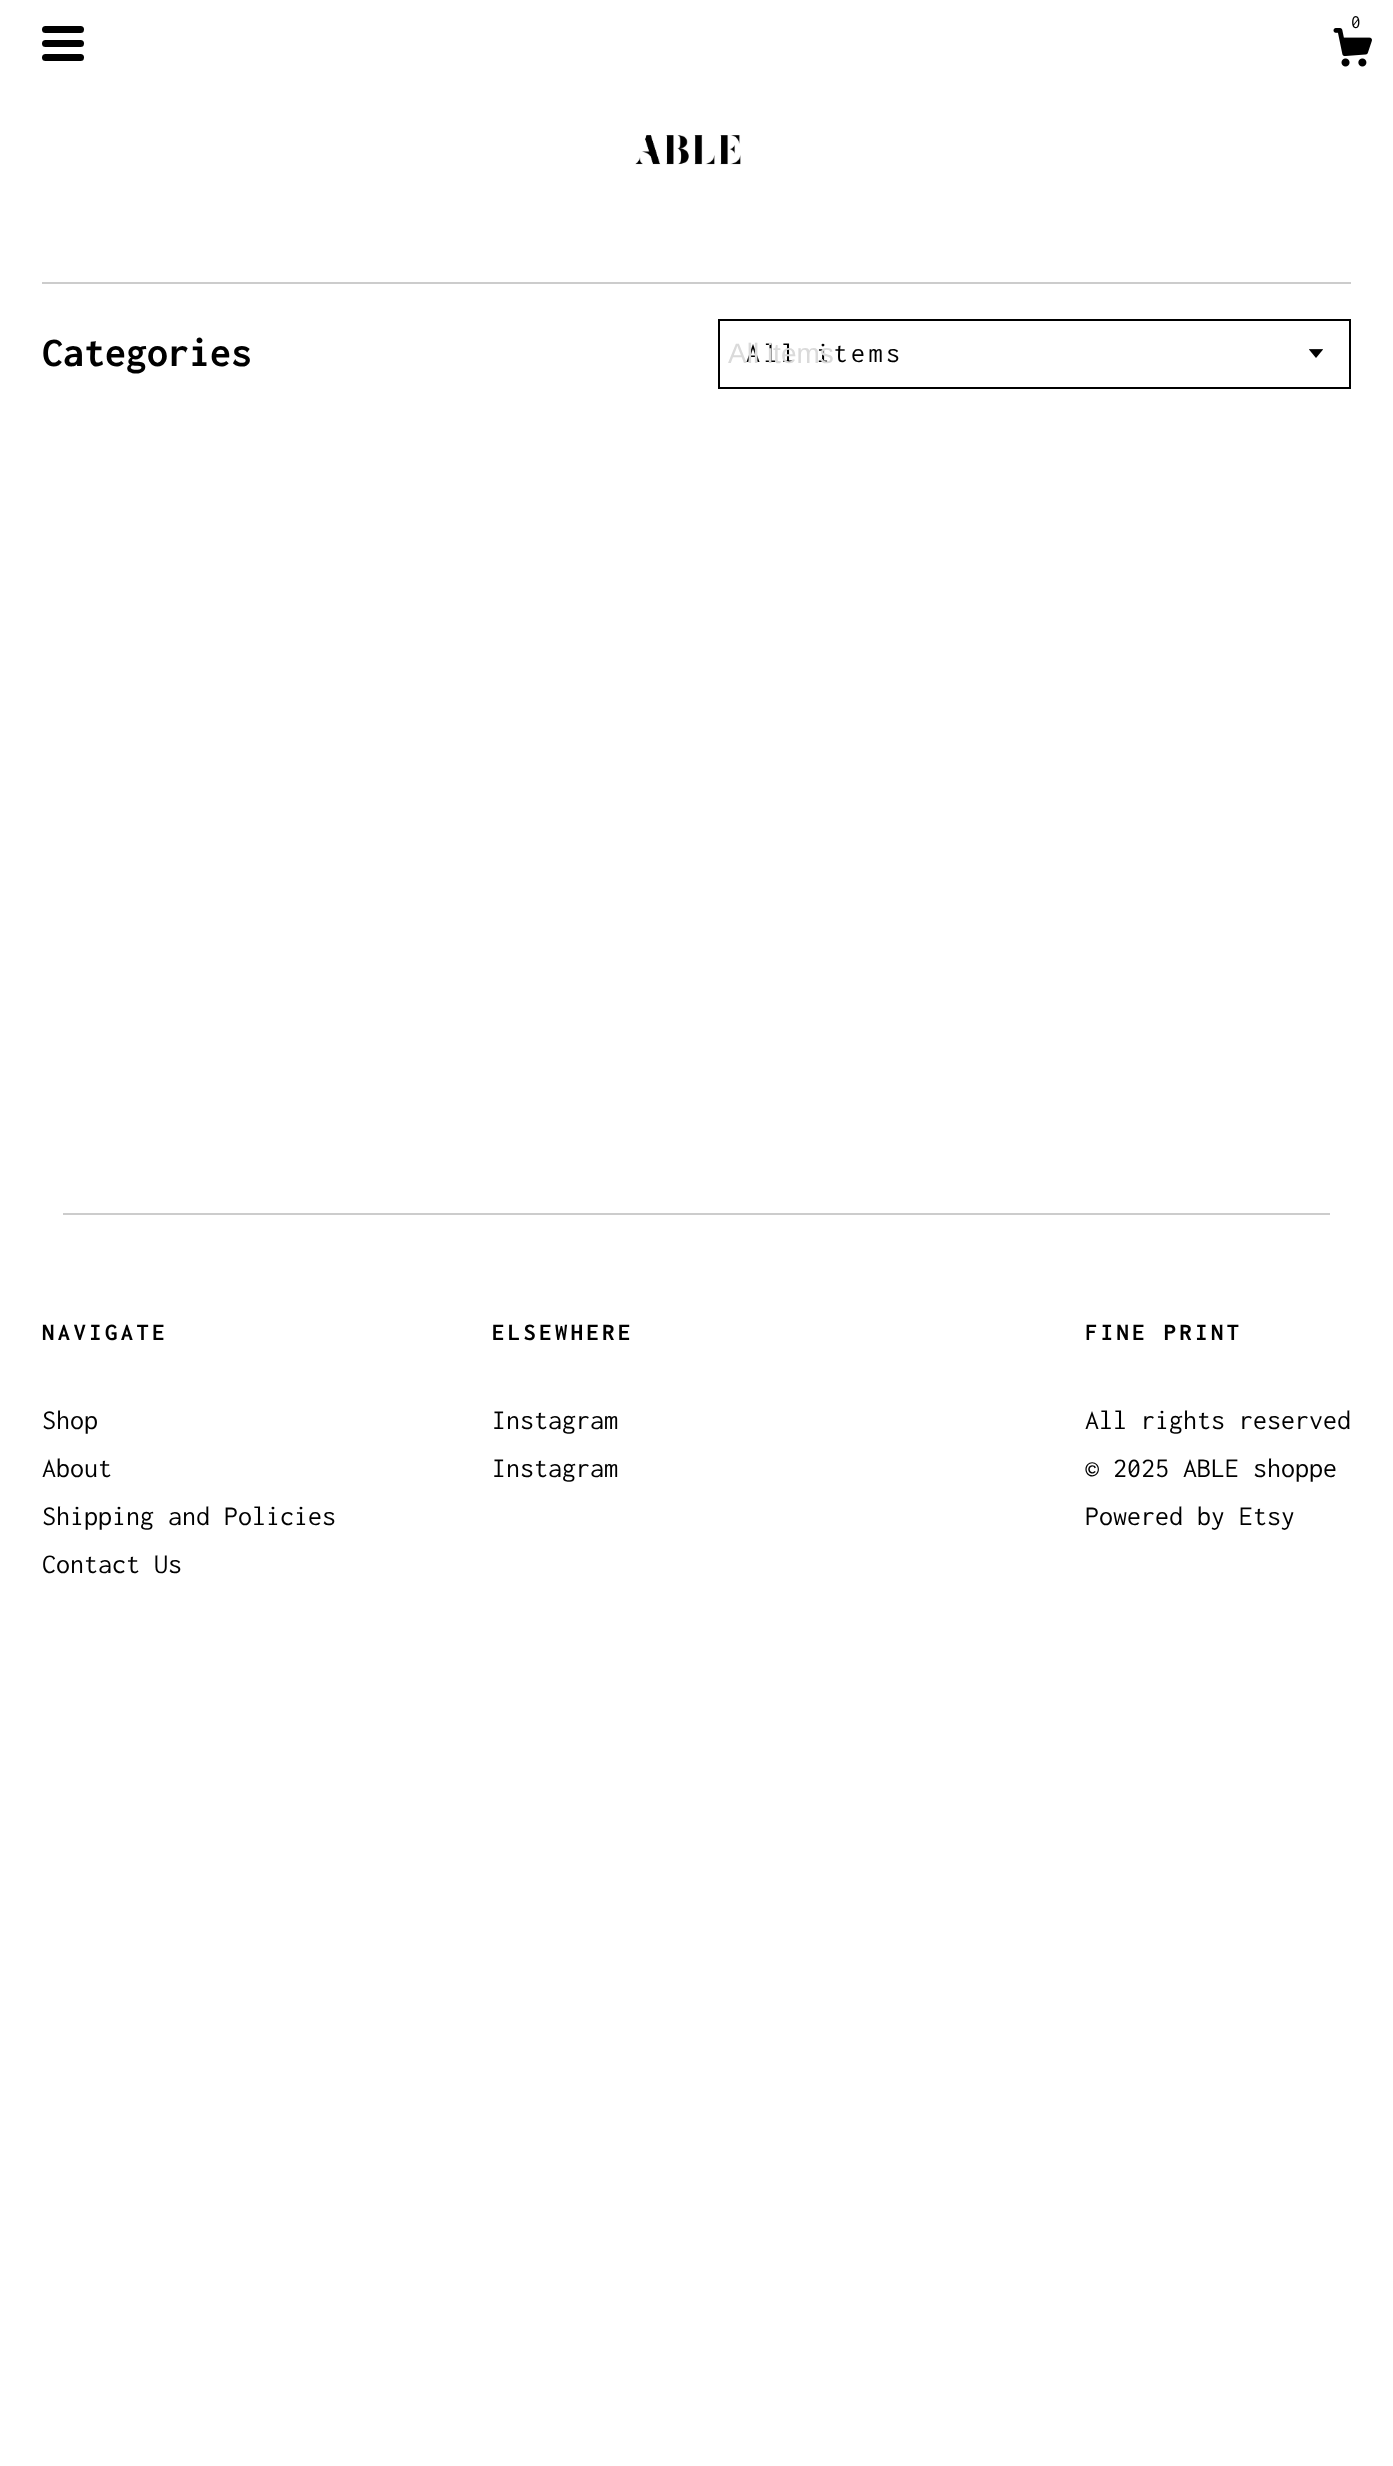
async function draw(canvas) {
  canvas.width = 1393
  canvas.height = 2466
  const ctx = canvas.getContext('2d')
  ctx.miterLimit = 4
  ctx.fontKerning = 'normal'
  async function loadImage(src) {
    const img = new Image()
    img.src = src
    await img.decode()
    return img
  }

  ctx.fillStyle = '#fff'
  ctx.fillRect(0, 0, 1393, 2466)
  ctx.drawImage(await loadImage('image0.png'), 1333, 28, 39, 39)
  ctx.font = '19px Inconsolata'
  ctx.fillStyle = '#000'
  ctx.fillText('0', 1351, 28)
  ctx.beginPath()
  ctx.roundRect(42, 26, 42, 7, 3.5)
  ctx.fill()
  ctx.beginPath()
  ctx.roundRect(42, 40, 42, 7, 3.5)
  ctx.fill()
  ctx.beginPath()
  ctx.roundRect(42, 54, 42, 7, 3.5)
  ctx.fill()
  ctx.drawImage(await loadImage('image1.png'), 635, 135, 106, 30)
  ctx.fillStyle = '#ccc'
  ctx.fillRect(42, 282, 1309, 2)
  ctx.font = 'bold 42px Inconsolata'
  ctx.fillStyle = '#000'
  ctx.fillText('Categories', 42, 366)
  ctx.strokeStyle = '#000'
  ctx.lineWidth = 2
  ctx.strokeRect(719, 320, 631, 68)
  ctx.letterSpacing = '3.5px'
  ctx.font = '28px Inconsolata'
  ctx.fillText('All items', 746, 362)
  ctx.letterSpacing = '0px'
  ctx.font = '28px Liberation Sans'
  ctx.fillStyle = '#dadada'
  ctx.fillText('All items', 728, 363)
  ctx.drawImage(await loadImage('image2.png'), 1309, 349, 14, 9)
  ctx.fillStyle = '#ccc'
  ctx.fillRect(63, 1213, 1267, 2)
  ctx.letterSpacing = '3.5px'
  ctx.font = 'bold 24.5px Inconsolata'
  ctx.fillStyle = '#000'
  ctx.fillText('NAVIGATE', 42, 1340)
  ctx.letterSpacing = '0px'
  ctx.font = '28px Inconsolata'
  ctx.fillText('Shop', 42, 1429)
  ctx.fillText('About', 42, 1477)
  ctx.fillText('Shipping and Policies', 42, 1525)
  ctx.fillText('Contact Us', 42, 1573)
  ctx.letterSpacing = '3.5px'
  ctx.font = 'bold 24.5px Inconsolata'
  ctx.fillText('ELSEWHERE', 492, 1340)
  ctx.letterSpacing = '0px'
  ctx.font = '28px Inconsolata'
  ctx.fillText('Instagram', 492, 1429)
  ctx.fillText('Instagram', 492, 1477)
  ctx.letterSpacing = '3.5px'
  ctx.font = 'bold 24.5px Inconsolata'
  ctx.fillText('FINE PRINT', 1085, 1340)
  ctx.letterSpacing = '0px'
  ctx.font = '28px Inconsolata'
  ctx.fillText('All rights reserved', 1085, 1429)
  ctx.fillText('© 2025 ABLE shoppe', 1085, 1477)
  ctx.fillText('Powered by Etsy', 1085, 1525)
}

draw(document.querySelector('canvas'))
